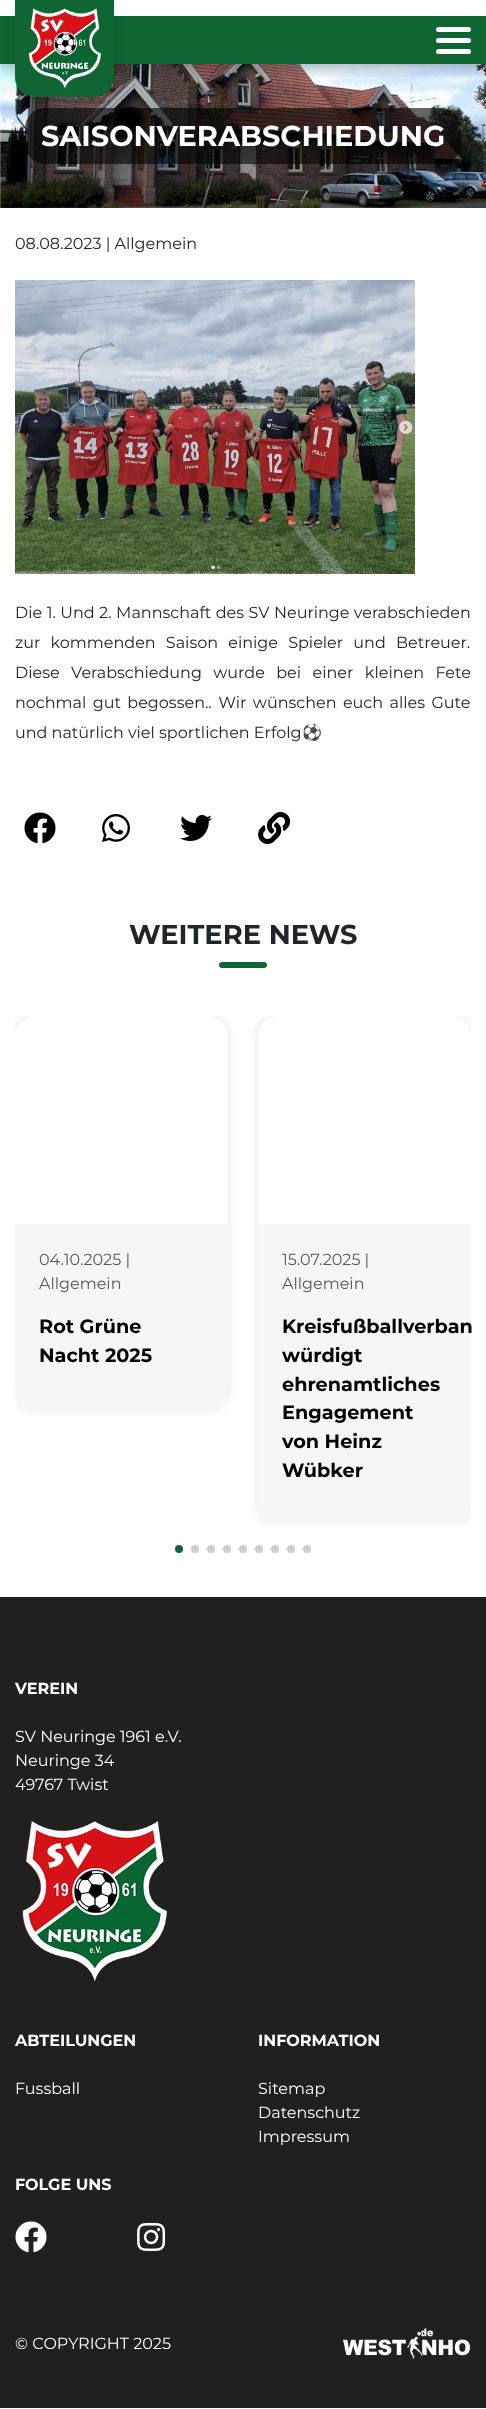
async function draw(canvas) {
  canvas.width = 486
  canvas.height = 2409
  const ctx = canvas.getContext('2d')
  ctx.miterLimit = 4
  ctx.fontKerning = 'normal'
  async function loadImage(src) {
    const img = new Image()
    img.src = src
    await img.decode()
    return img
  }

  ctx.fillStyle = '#fff'
  ctx.fillRect(0, 0, 486, 2409)
  ctx.drawImage(await loadImage('image1.png'), 0, 64, 486, 144)
  ctx.save()
  ctx.beginPath()
  ctx.rect(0, 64, 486, 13)
  ctx.clip()
  ctx.fillStyle = '#0000004d'
  ctx.filter = 'blur(7.5px)'
  ctx.beginPath()
  ctx.rect(-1, 0, 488, 66)
  ctx.fill()
  ctx.filter = 'none'
  ctx.restore()
  ctx.fillStyle = '#106633'
  ctx.fillRect(0, 16, 486, 48)
  ctx.fillStyle = '#01010199'
  ctx.beginPath()
  ctx.roundRect(25, 108, 436, 56, 20)
  ctx.fill()
  ctx.fillStyle = '#0000001a'
  ctx.filter = 'blur(5px)'
  ctx.beginPath()
  ctx.roundRect(15, -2, 99, 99, 20)
  ctx.fill()
  ctx.filter = 'none'
  ctx.fillStyle = '#106633'
  ctx.beginPath()
  ctx.moveTo(15, -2)
  ctx.lineTo(114, -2)
  ctx.lineTo(114, 77)
  ctx.bezierCurveTo(114, 88, 105, 97, 94, 97)
  ctx.lineTo(35, 97)
  ctx.bezierCurveTo(24, 97, 15, 88, 15, 77)
  ctx.closePath()
  ctx.fill()
  ctx.drawImage(await loadImage('image0.png'), 29, 8, 72, 81)
  ctx.fillStyle = '#fff'
  ctx.beginPath()
  ctx.roundRect(436, 27, 35, 5, 2.5)
  ctx.fill()
  ctx.beginPath()
  ctx.roundRect(436, 38, 35, 5, 2.5)
  ctx.fill()
  ctx.beginPath()
  ctx.roundRect(436, 49, 35, 5, 2.5)
  ctx.fill()
  ctx.font = '100 28.75px Montserrat'
  ctx.fillText('SAISONVERABSCHIEDUNG', 41, 146)
  ctx.font = '100 16px "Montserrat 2"'
  ctx.fillStyle = '#212529'
  ctx.fillText('08.08.2023 | Allgemein', 15, 249)
  ctx.drawImage(await loadImage('image2.png'), 15, 280, 400, 294)
  ctx.wordSpacing = '0.25px'
  ctx.fillText('Die 1. Und 2. Mannschaft des SV Neuringe verabschieden', 15, 618)
  ctx.wordSpacing = '6px'
  ctx.fillText('zur kommenden Saison einige Spieler und Betreuer.', 15, 648)
  ctx.wordSpacing = '7.25px'
  ctx.fillText('Diese Verabschiedung wurde bei einer kleinen Fete', 15, 678)
  ctx.wordSpacing = '2.25px'
  ctx.fillText('nochmal gut begossen.. Wir wünschen euch alles Gute', 15, 708)
  ctx.wordSpacing = '0px'
  ctx.fillText('und natürlich viel sportlichen Erfolg', 15, 738)
  ctx.font = '16px Noto Color Emoji'
  ctx.fillText('⚽️', 302, 738)
  ctx.drawImage(await loadImage('image3.png'), 24, 812, 32, 32)
  ctx.drawImage(await loadImage('image4.png'), 102, 814, 28, 28)
  ctx.drawImage(await loadImage('image5.png'), 180, 815, 32, 26)
  ctx.drawImage(await loadImage('image6.png'), 258, 812, 33, 32)
  ctx.font = '100 27.25px Montserrat'
  ctx.fillText('WEITERE NEWS', 129, 944)
  ctx.fillStyle = '#106633'
  ctx.beginPath()
  ctx.roundRect(219, 962, 48, 6, 3)
  ctx.fill()
  ctx.save()
  ctx.beginPath()
  ctx.rect(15, 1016, 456, 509)
  ctx.clip()
  ctx.beginPath()
  ctx.moveTo(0, 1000)
  ctx.lineTo(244, 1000)
  ctx.lineTo(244, 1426)
  ctx.lineTo(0, 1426)
  ctx.closePath()
  ctx.moveTo(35, 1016)
  ctx.lineTo(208, 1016)
  ctx.bezierCurveTo(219, 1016, 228, 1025, 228, 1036)
  ctx.lineTo(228, 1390)
  ctx.bezierCurveTo(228, 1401, 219, 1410, 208, 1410)
  ctx.lineTo(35, 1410)
  ctx.bezierCurveTo(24, 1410, 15, 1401, 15, 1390)
  ctx.lineTo(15, 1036)
  ctx.bezierCurveTo(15, 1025, 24, 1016, 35, 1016)
  ctx.closePath()
  ctx.clip('evenodd')
  ctx.fillStyle = '#0000001a'
  ctx.filter = 'blur(5px)'
  ctx.beginPath()
  ctx.roundRect(15, 1016, 213, 394, 20)
  ctx.fill()
  ctx.filter = 'none'
  ctx.restore()
  ctx.fillStyle = '#f6f6f6'
  ctx.beginPath()
  ctx.roundRect(15, 1224, 213, 186, [0, 0, 20, 20])
  ctx.fill()
  ctx.font = '100 16px "Montserrat 2"'
  ctx.fillStyle = '#595959'
  ctx.fillText('04.10.2025 |', 39, 1265)
  ctx.fillText('Allgemein', 39, 1289)
  ctx.font = '100 19.25px Montserrat'
  ctx.fillStyle = '#000'
  ctx.fillText('Rot Grüne', 39, 1333)
  ctx.fillText('Nacht 2025', 39, 1362)
  ctx.save()
  ctx.beginPath()
  ctx.rect(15, 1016, 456, 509)
  ctx.clip()
  ctx.beginPath()
  ctx.moveTo(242, 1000)
  ctx.lineTo(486, 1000)
  ctx.lineTo(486, 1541)
  ctx.lineTo(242, 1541)
  ctx.closePath()
  ctx.moveTo(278, 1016)
  ctx.lineTo(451, 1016)
  ctx.bezierCurveTo(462, 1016, 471, 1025, 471, 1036)
  ctx.lineTo(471, 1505)
  ctx.bezierCurveTo(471, 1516, 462, 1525, 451, 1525)
  ctx.lineTo(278, 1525)
  ctx.bezierCurveTo(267, 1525, 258, 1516, 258, 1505)
  ctx.lineTo(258, 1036)
  ctx.bezierCurveTo(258, 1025, 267, 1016, 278, 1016)
  ctx.closePath()
  ctx.clip('evenodd')
  ctx.fillStyle = '#0000001a'
  ctx.filter = 'blur(5px)'
  ctx.beginPath()
  ctx.roundRect(258, 1016, 213, 509, 20)
  ctx.fill()
  ctx.filter = 'none'
  ctx.restore()
  ctx.fillStyle = '#f6f6f6'
  ctx.beginPath()
  ctx.roundRect(258, 1224, 213, 301, [0, 0, 20, 20])
  ctx.fill()
  ctx.font = '100 16px "Montserrat 2"'
  ctx.fillStyle = '#595959'
  ctx.fillText('15.07.2025 |', 282, 1265)
  ctx.fillText('Allgemein', 282, 1289)
  ctx.font = '100 19.25px Montserrat'
  ctx.fillStyle = '#000'
  ctx.fillText('Kreisfußballverban', 282, 1333)
  ctx.fillText('würdigt', 282, 1362)
  ctx.fillText('ehrenamtliches', 282, 1391)
  ctx.fillText('Engagement', 282, 1419)
  ctx.fillText('von Heinz', 282, 1448)
  ctx.fillText('Wübker', 282, 1477)
  ctx.fillStyle = '#106633'
  ctx.beginPath()
  ctx.arc(179, 1549, 4, 0, 2 * Math.PI)
  ctx.fill()
  ctx.fillStyle = '#ccc'
  ctx.beginPath()
  ctx.arc(195, 1549, 4, 0, 2 * Math.PI)
  ctx.fill()
  ctx.beginPath()
  ctx.arc(211, 1549, 4, 0, 2 * Math.PI)
  ctx.fill()
  ctx.beginPath()
  ctx.arc(227, 1549, 4, 0, 2 * Math.PI)
  ctx.fill()
  ctx.beginPath()
  ctx.arc(243, 1549, 4, 0, 2 * Math.PI)
  ctx.fill()
  ctx.beginPath()
  ctx.arc(259, 1549, 4, 0, 2 * Math.PI)
  ctx.fill()
  ctx.beginPath()
  ctx.arc(275, 1549, 4, 0, 2 * Math.PI)
  ctx.fill()
  ctx.beginPath()
  ctx.arc(291, 1549, 4, 0, 2 * Math.PI)
  ctx.fill()
  ctx.beginPath()
  ctx.arc(307, 1549, 4, 0, 2 * Math.PI)
  ctx.fill()
  ctx.fillStyle = '#202020'
  ctx.fillRect(0, 1597, 486, 811)
  ctx.font = '100 16px Montserrat'
  ctx.fillStyle = '#fff'
  ctx.fillText('VEREIN', 15, 1694)
  ctx.font = '100 16px "Montserrat 2"'
  ctx.fillText('SV Neuringe 1961 e.V.', 15, 1742)
  ctx.fillText('Neuringe 34', 15, 1766)
  ctx.fillText('49767 Twist', 15, 1790)
  ctx.drawImage(await loadImage('image7.png'), 22, 1821, 145, 160)
  ctx.font = '100 16px Montserrat'
  ctx.fillText('ABTEILUNGEN', 15, 2046)
  ctx.font = '100 16px "Montserrat 2"'
  ctx.fillText('Fussball', 15, 2094)
  ctx.font = '100 16px Montserrat'
  ctx.fillText('INFORMATION', 258, 2046)
  ctx.font = '100 16px "Montserrat 2"'
  ctx.fillText('Sitemap', 258, 2094)
  ctx.fillText('Datenschutz', 258, 2118)
  ctx.fillText('Impressum', 258, 2142)
  ctx.font = '100 16px Montserrat'
  ctx.fillText('FOLGE UNS', 15, 2190)
  ctx.drawImage(await loadImage('image8.png'), 15, 2221, 32, 32)
  ctx.drawImage(await loadImage('image9.png'), 137, 2223, 29, 28)
  ctx.font = '100 16px "Montserrat 2"'
  ctx.fillText('© COPYRIGHT 2025', 15, 2349)
  ctx.drawImage(await loadImage('image10.png'), 342, 2328, 129, 32)
}

draw(document.querySelector('canvas'))
